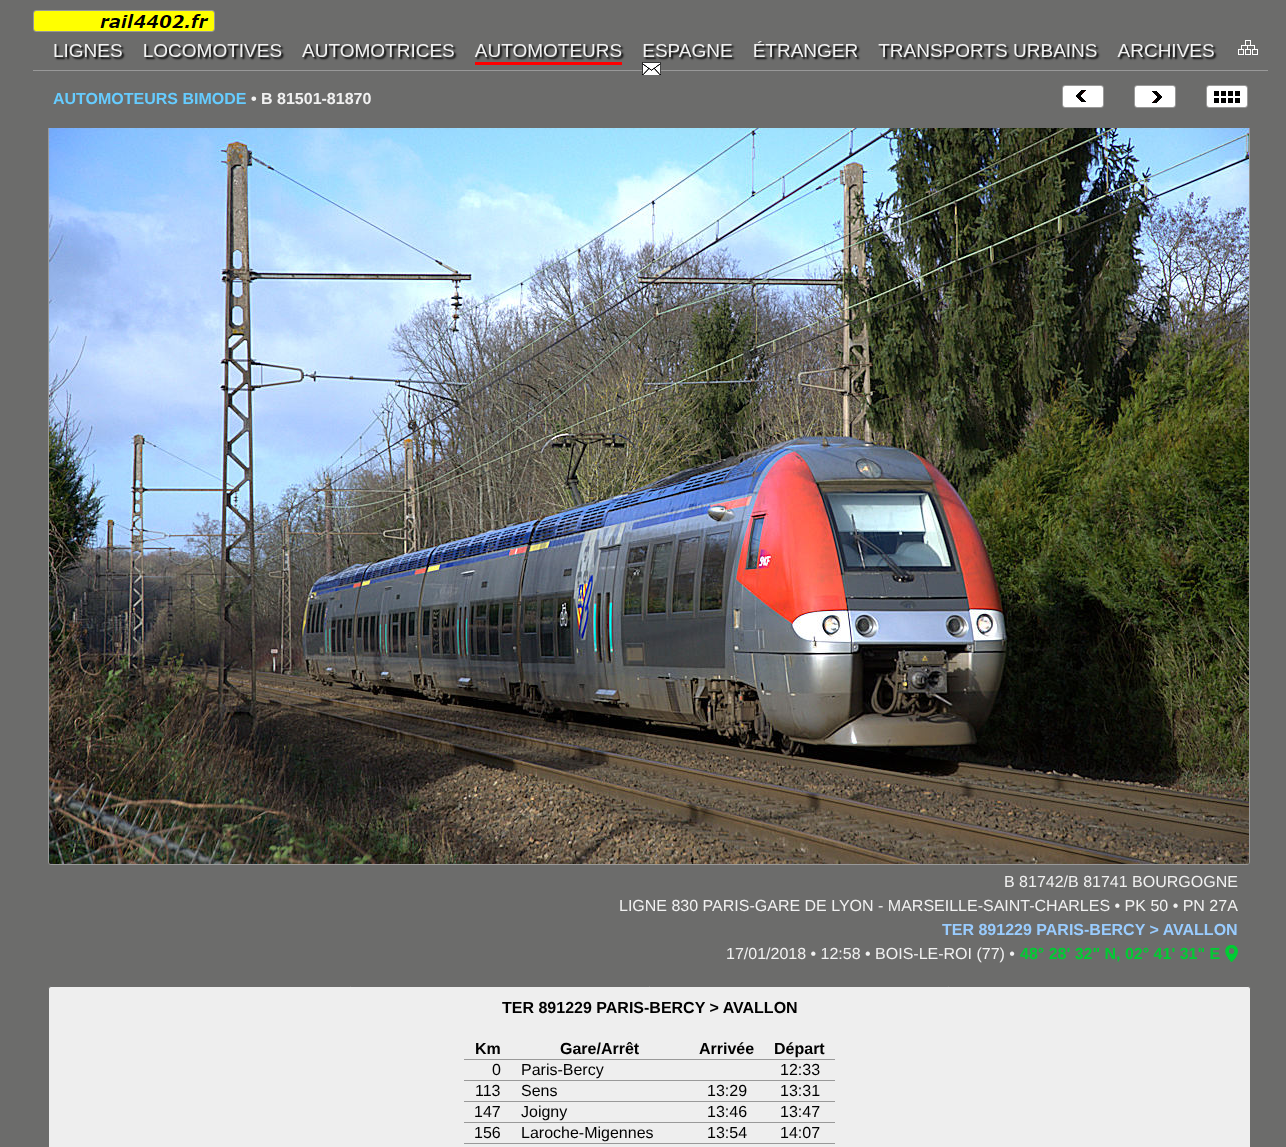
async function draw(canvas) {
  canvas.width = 1286
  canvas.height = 1147
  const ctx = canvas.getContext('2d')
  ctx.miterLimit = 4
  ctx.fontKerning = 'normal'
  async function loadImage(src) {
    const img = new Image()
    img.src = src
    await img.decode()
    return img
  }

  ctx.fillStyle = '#6c6c6b'
  ctx.fillRect(0, 0, 1286, 1147)
  ctx.beginPath()
  ctx.roundRect(48.5, 63.5, 1201, 801, 2.5)
  ctx.strokeStyle = '#999'
  ctx.stroke()
  ctx.drawImage(await loadImage('image0.png'), 33, 10, 1235, 65)
  ctx.drawImage(await loadImage('image1.png'), 49, 128, 1200, 736)
  ctx.fillRect(48, 75, 1202, 53)
  ctx.font = 'bold 16px Liberation Sans'
  ctx.fillStyle = '#6cf'
  ctx.fillText('AUTOMOTEURS BIMODE', 53, 104)
  ctx.fillStyle = '#f1f1f1'
  ctx.fillText('• B 81501-81870', 251, 104)
  ctx.beginPath()
  ctx.roundRect(1062.5, 85.5, 41, 22, 2.5)
  ctx.stroke()
  ctx.drawImage(await loadImage('image2.png'), 1063, 86, 40, 21)
  ctx.beginPath()
  ctx.roundRect(1134.5, 85.5, 41, 22, 2.5)
  ctx.stroke()
  ctx.drawImage(await loadImage('image3.png'), 1135, 86, 40, 21)
  ctx.beginPath()
  ctx.roundRect(1206.5, 85.5, 41, 22, 2.5)
  ctx.stroke()
  ctx.drawImage(await loadImage('image4.png'), 1207, 86, 40, 21)
  ctx.font = '16px Liberation Sans'
  ctx.fillText('B 81742/B 81741 BOURGOGNE', 1004, 887)
  ctx.fillText('LIGNE 830 PARIS-GARE DE LYON - MARSEILLE-SAINT-CHARLES • PK 50 • PN 27A', 619, 911)
  ctx.font = 'bold 16px Liberation Sans'
  ctx.fillStyle = '#9cf'
  ctx.fillText('TER 891229 PARIS-BERCY > AVALLON', 942, 935)
  ctx.font = '16px Liberation Sans'
  ctx.fillStyle = '#f1f1f1'
  ctx.fillText('17/01/2018 • 12:58 • BOIS-LE-ROI (77) •', 726, 959)
  ctx.font = 'bold 16px Liberation Sans'
  ctx.fillStyle = '#0c3'
  ctx.fillText('48° 28\' 32" N, 02° 41\' 31" E', 1020, 959)
  ctx.drawImage(await loadImage('image5.png'), 1225, 945, 13, 17)
  ctx.fillStyle = '#eee'
  ctx.beginPath()
  ctx.roundRect(48.5, 986.5, 1202, 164, 2.5)
  ctx.fill()
  ctx.strokeStyle = '#6c6c6b'
  ctx.stroke()
  ctx.fillStyle = '#000'
  ctx.fillText('TER 891229 PARIS-BERCY > AVALLON', 502, 1013)
  ctx.fillText('Km', 475, 1054)
  ctx.fillText('Gare/Arrêt', 560, 1054)
  ctx.fillText('Arrivée', 699, 1054)
  ctx.fillStyle = '#999'
  ctx.fillRect(464, 1059, 371, 1)
  ctx.fillStyle = '#000'
  ctx.fillText('Départ', 774, 1054)
  ctx.font = '16px Liberation Sans'
  ctx.fillText('0', 492, 1075)
  ctx.fillText('Paris-Bercy', 521, 1075)
  ctx.fillStyle = '#999'
  ctx.fillRect(464, 1080, 371, 1)
  ctx.fillStyle = '#000'
  ctx.fillText('12:33', 780, 1075)
  ctx.fillText('113', 475, 1096)
  ctx.fillText('Sens', 521, 1096)
  ctx.fillText('13:29', 707, 1096)
  ctx.fillStyle = '#999'
  ctx.fillRect(464, 1101, 371, 1)
  ctx.fillStyle = '#000'
  ctx.fillText('13:31', 780, 1096)
  ctx.fillText('147', 474, 1117)
  ctx.fillText('Joigny', 521, 1117)
  ctx.fillText('13:46', 707, 1117)
  ctx.fillStyle = '#999'
  ctx.fillRect(464, 1122, 371, 1)
  ctx.fillStyle = '#000'
  ctx.fillText('13:47', 780, 1117)
  ctx.fillText('156', 474, 1138)
  ctx.fillText('Laroche-Migennes', 521, 1138)
  ctx.fillText('13:54', 707, 1138)
  ctx.fillStyle = '#999'
  ctx.fillRect(464, 1143, 371, 1)
  ctx.fillStyle = '#000'
  ctx.fillText('14:07', 780, 1138)
}

draw(document.querySelector('canvas'))
